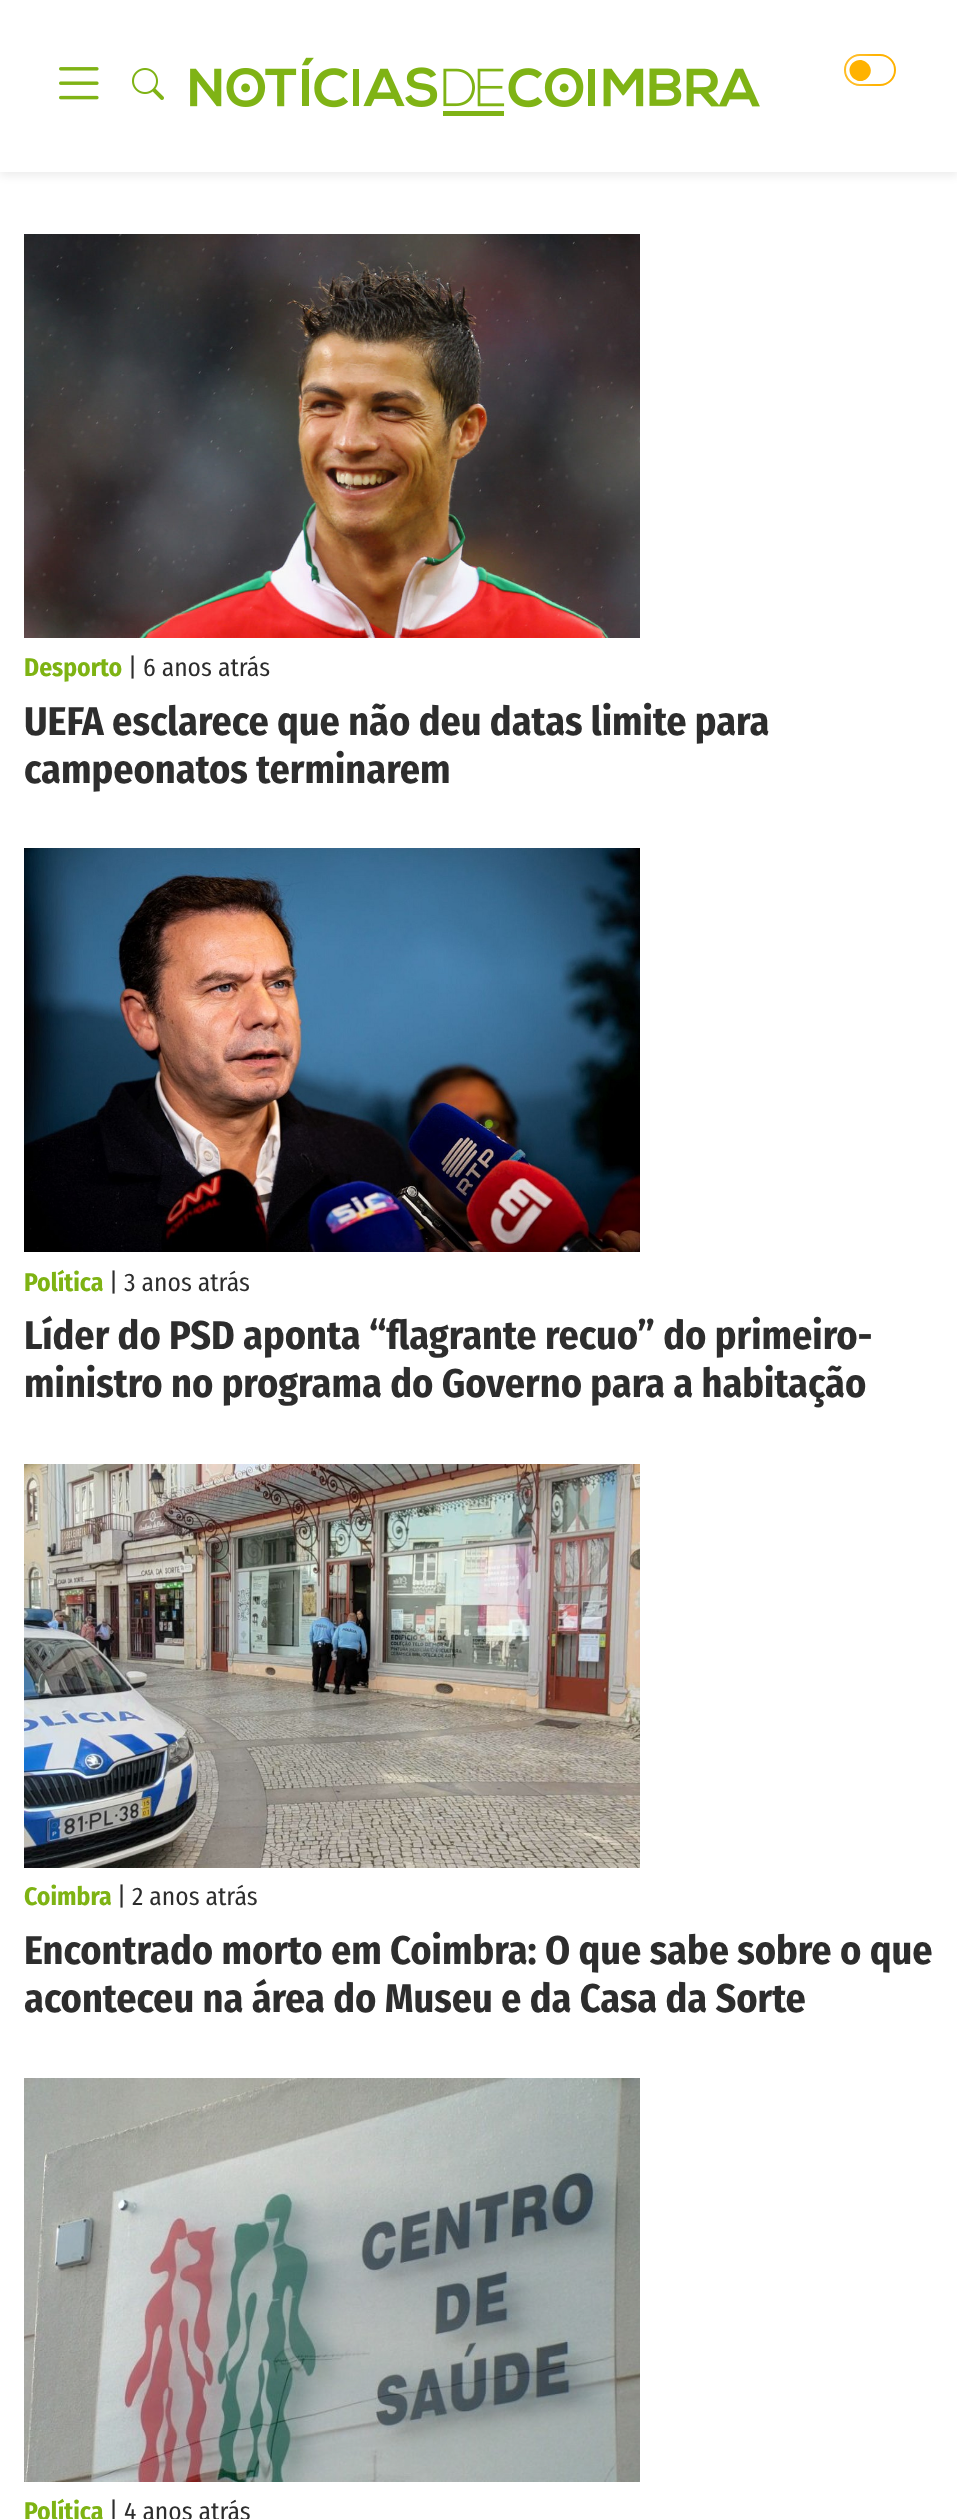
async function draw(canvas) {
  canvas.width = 957
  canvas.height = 2519
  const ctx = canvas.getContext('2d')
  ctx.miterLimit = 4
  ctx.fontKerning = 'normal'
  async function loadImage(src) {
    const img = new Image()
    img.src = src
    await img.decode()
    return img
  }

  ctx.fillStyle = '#fff'
  ctx.fillRect(0, 0, 957, 2519)
  ctx.fillStyle = '#00000012'
  ctx.filter = 'blur(4px)'
  ctx.beginPath()
  ctx.rect(0, 4, 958, 172)
  ctx.fill()
  ctx.filter = 'none'
  ctx.fillStyle = '#fff'
  ctx.fillRect(0, 0, 957, 172)
  ctx.drawImage(await loadImage('image0.png'), 59, 67, 40, 33)
  ctx.drawImage(await loadImage('image1.png'), 132, 68, 32, 32)
  ctx.drawImage(await loadImage('image2.png'), 190, 57, 570, 59)
  ctx.beginPath()
  ctx.roundRect(845, 55, 50, 30, 15)
  ctx.strokeStyle = '#ffb200'
  ctx.lineWidth = 2
  ctx.stroke()
  ctx.filter = 'blur(6.5px)'
  ctx.beginPath()
  ctx.roundRect(850, 60, 20, 20, 10)
  ctx.fill()
  ctx.filter = 'none'
  ctx.fillStyle = '#ffb200'
  ctx.beginPath()
  ctx.moveTo(852.5, 63)
  ctx.bezierCurveTo(862.5, 53.5, 877.5, 68, 867.5, 78)
  ctx.bezierCurveTo(858, 87.5, 843, 73, 852.5, 63)
  ctx.closePath()
  ctx.fill()
  ctx.drawImage(await loadImage('image3.png'), 24, 234, 616, 404)
  ctx.font = 'bold 25.5px Fira Sans Condensed'
  ctx.fillStyle = '#7eb313'
  ctx.fillText('Desporto', 24, 676)
  ctx.font = '25.5px Fira Sans Condensed'
  ctx.fillStyle = '#2d2d2d'
  ctx.fillText('| 6 anos atrás', 128, 676)
  ctx.font = 'bold 40px Fira Sans Condensed'
  ctx.fillText('UEFA esclarece que não deu datas limite para', 24, 735)
  ctx.fillText('campeonatos terminarem', 24, 783)
  ctx.drawImage(await loadImage('image4.png'), 24, 848, 616, 404)
  ctx.font = 'bold 25.5px Fira Sans Condensed'
  ctx.fillStyle = '#7eb313'
  ctx.fillText('Política', 24, 1291)
  ctx.font = '25.5px Fira Sans Condensed'
  ctx.fillStyle = '#2d2d2d'
  ctx.fillText('| 3 anos atrás', 109, 1291)
  ctx.font = 'bold 40px Fira Sans Condensed'
  ctx.fillText('Líder do PSD aponta “flagrante recuo” do primeiro-', 24, 1349)
  ctx.fillText('ministro no programa do Governo para a habitação', 24, 1397)
  ctx.drawImage(await loadImage('image5.png'), 24, 1464, 616, 404)
  ctx.font = 'bold 25.5px Fira Sans Condensed'
  ctx.fillStyle = '#7eb313'
  ctx.fillText('Coimbra', 24, 1905)
  ctx.font = '25.5px Fira Sans Condensed'
  ctx.fillStyle = '#2d2d2d'
  ctx.fillText('| 2 anos atrás', 117, 1905)
  ctx.font = 'bold 40px Fira Sans Condensed'
  ctx.fillText('Encontrado morto em Coimbra: O que sabe sobre o que', 24, 1964)
  ctx.fillText('aconteceu na área do Museu e da Casa da Sorte', 24, 2012)
  ctx.drawImage(await loadImage('image6.png'), 24, 2078, 616, 404)
  ctx.font = 'bold 25.5px Fira Sans Condensed'
  ctx.fillStyle = '#7eb313'
  ctx.fillText('Política', 24, 2520)
  ctx.font = '25.5px Fira Sans Condensed'
  ctx.fillStyle = '#2d2d2d'
  ctx.fillText('| 4 anos atrás', 109, 2520)
}

draw(document.querySelector('canvas'))
